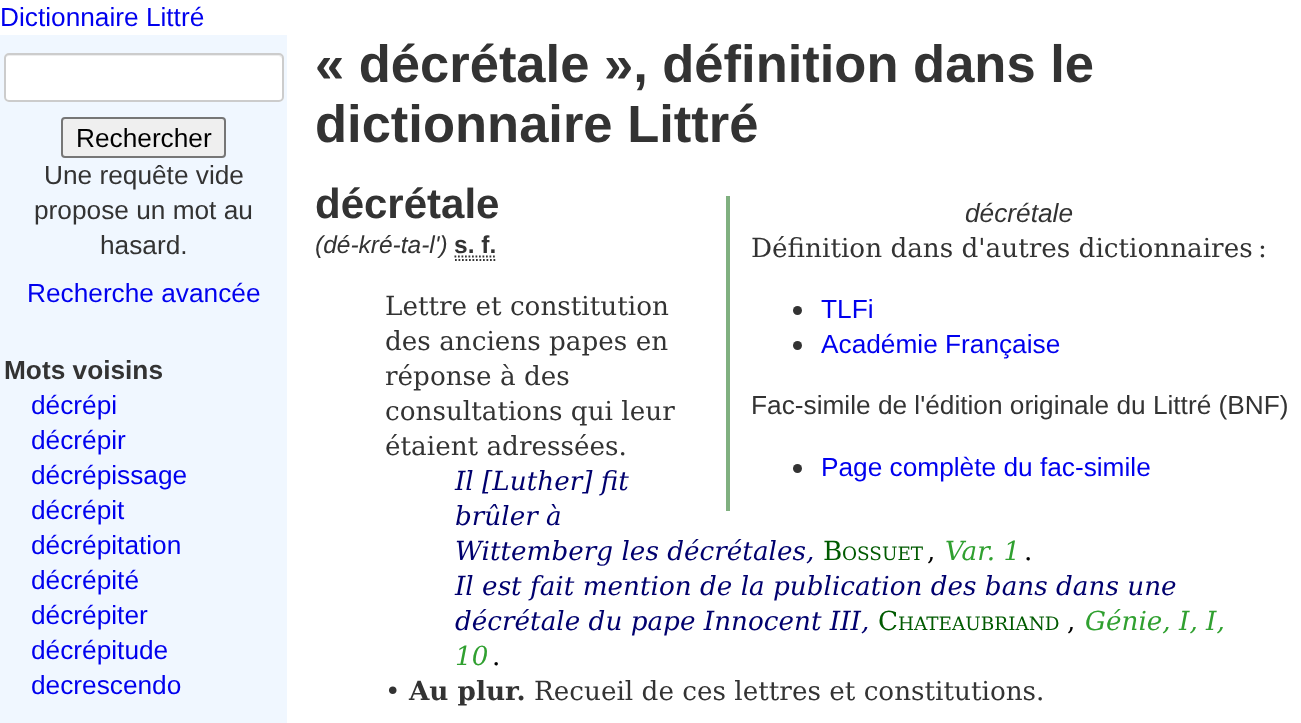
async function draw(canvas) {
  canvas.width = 1301
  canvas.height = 723
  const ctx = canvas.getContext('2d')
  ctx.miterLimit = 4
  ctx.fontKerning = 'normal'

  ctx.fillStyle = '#fff'
  ctx.fillRect(0, 0, 1301, 723)
  ctx.font = '26.25px Liberation Sans'
  ctx.fillStyle = '#00e'
  ctx.fillText('Dictionnaire Littré', 0, 26)
  ctx.fillStyle = '#f0f7ff'
  ctx.fillRect(0, 35, 287, 688)
  ctx.fillStyle = '#fff'
  ctx.beginPath()
  ctx.roundRect(4, 53, 280, 49, 5)
  ctx.fill()
  ctx.fillStyle = '#ededed'
  ctx.beginPath()
  ctx.moveTo(9, 56)
  ctx.lineTo(278, 56)
  ctx.bezierCurveTo(280, 56, 282, 58, 282, 60)
  ctx.bezierCurveTo(282, 57, 282, 54, 278, 54)
  ctx.lineTo(9, 54)
  ctx.bezierCurveTo(5, 54, 5, 57, 5, 60)
  ctx.bezierCurveTo(5, 58, 7, 56, 9, 56)
  ctx.closePath()
  ctx.fill()
  ctx.beginPath()
  ctx.roundRect(5, 54, 278, 47, 4)
  ctx.strokeStyle = '#ccc'
  ctx.lineWidth = 2
  ctx.stroke()
  ctx.fillStyle = '#efefef'
  ctx.beginPath()
  ctx.roundRect(62, 118, 163, 39, 3)
  ctx.fill()
  ctx.strokeStyle = '#767676'
  ctx.stroke()
  ctx.fillStyle = '#000'
  ctx.fillText('Rechercher', 76, 147)
  ctx.fillStyle = '#333'
  ctx.fillText('Une requête vide', 44, 184)
  ctx.fillText('propose un mot au', 34, 219)
  ctx.fillText('hasard.', 100, 254)
  ctx.fillStyle = '#00e'
  ctx.fillText('Recherche avancée', 27, 302)
  ctx.font = 'bold 26.25px Liberation Sans'
  ctx.fillStyle = '#333'
  ctx.fillText('Mots voisins', 4, 379)
  ctx.font = '26.25px Liberation Sans'
  ctx.fillStyle = '#00e'
  ctx.fillText('décrépi', 31, 414)
  ctx.fillText('décrépir', 31, 449)
  ctx.fillText('décrépissage', 31, 484)
  ctx.fillText('décrépit', 31, 519)
  ctx.fillText('décrépitation', 31, 554)
  ctx.fillText('décrépité', 31, 589)
  ctx.fillText('décrépiter', 31, 624)
  ctx.fillText('décrépitude', 31, 659)
  ctx.fillText('decrescendo', 31, 694)
  ctx.font = 'bold 52.5px Liberation Sans'
  ctx.fillStyle = '#333'
  ctx.fillText('« décrétale », définition dans le', 315, 82)
  ctx.fillText('dictionnaire Littré', 315, 142)
  ctx.font = 'bold 42px Liberation Sans'
  ctx.fillText('décrétale', 315, 218)
  ctx.font = 'italic 24.5px Liberation Sans'
  ctx.fillText('(dé-kré-ta-l\')', 315, 253)
  ctx.font = 'bold 24.5px Liberation Sans'
  ctx.fillText('s. f.', 454, 253)
  ctx.beginPath()
  ctx.moveTo(455, 260)
  ctx.lineTo(497, 260)
  ctx.moveTo(454.5, 256.5)
  ctx.lineTo(496.5, 256.5)
  ctx.strokeStyle = '#333'
  ctx.lineWidth = 1.8
  ctx.setLineDash([1.75, 1.75])
  ctx.stroke()
  ctx.font = '26.25px DejaVu Serif'
  ctx.fillText('Lettre et constitution', 385, 315)
  ctx.fillText('des anciens papes en', 385, 350)
  ctx.fillText('réponse à des', 385, 385)
  ctx.fillText('consultations qui leur', 385, 420)
  ctx.fillText('étaient adressées.', 385, 455)
  ctx.font = 'italic 26.25px DejaVu Serif'
  ctx.fillStyle = '#00006e'
  ctx.fillText('Il [Luther] fit', 455, 490)
  ctx.fillText('brûler à', 455, 525)
  ctx.fillText('Wittemberg les décrétales,', 455, 560)
  ctx.font = '26.25px DejaVu Serif'
  ctx.fillStyle = '#005a00'
  ctx.fillText('B', 823, 560)
  ctx.font = '18.4px DejaVu Serif'
  ctx.fillText('OSSUET', 842, 560)
  ctx.font = '26.25px DejaVu Serif'
  ctx.fillStyle = '#000'
  ctx.fillText(',', 927, 560)
  ctx.font = 'italic 26.25px DejaVu Serif'
  ctx.fillStyle = '#30a030'
  ctx.fillText('Var. 1', 945, 560)
  ctx.font = '26.25px DejaVu Serif'
  ctx.fillStyle = '#000'
  ctx.fillText('.', 1024, 560)
  ctx.font = 'italic 26.25px DejaVu Serif'
  ctx.fillStyle = '#00006e'
  ctx.fillText('Il est fait mention de la publication des bans dans une', 455, 595)
  ctx.fillText('décrétale du pape Innocent III,', 455, 630)
  ctx.font = '26.25px DejaVu Serif'
  ctx.fillStyle = '#005a00'
  ctx.fillText('C', 878, 630)
  ctx.font = '18.4px DejaVu Serif'
  ctx.fillText('HATEAUBRIAND', 898, 630)
  ctx.font = '26.25px DejaVu Serif'
  ctx.fillStyle = '#000'
  ctx.fillText(',', 1067, 630)
  ctx.font = 'italic 26.25px DejaVu Serif'
  ctx.fillStyle = '#30a030'
  ctx.fillText('Génie, I, I,', 1085, 630)
  ctx.fillText('10', 455, 665)
  ctx.font = '26.25px DejaVu Serif'
  ctx.fillStyle = '#000'
  ctx.fillText('.', 492, 665)
  ctx.fillStyle = '#333'
  ctx.fillText('•', 385, 700)
  ctx.font = 'bold 26.25px DejaVu Serif'
  ctx.fillText('Au plur.', 409, 700)
  ctx.font = '26.25px DejaVu Serif'
  ctx.fillText('Recueil de ces lettres et constitutions.', 534, 700)
  ctx.fillStyle = '#80b080'
  ctx.fillRect(726, 196, 4, 315)
  ctx.font = 'italic 26.25px Liberation Sans'
  ctx.fillStyle = '#333'
  ctx.fillText('décrétale', 965, 222)
  ctx.font = '26.25px DejaVu Serif'
  ctx.fillText('Définition dans d\'autres dictionnaires :', 751, 257)
  ctx.beginPath()
  ctx.arc(797.5, 310.5, 4.5, 0, 2 * Math.PI)
  ctx.fill()
  ctx.font = '26.25px Liberation Sans'
  ctx.fillStyle = '#00e'
  ctx.fillText('TLFi', 821, 318)
  ctx.fillStyle = '#333'
  ctx.beginPath()
  ctx.arc(797.5, 345.5, 4.5, 0, 2 * Math.PI)
  ctx.fill()
  ctx.fillStyle = '#00e'
  ctx.fillText('Académie Française', 821, 353)
  ctx.fillStyle = '#333'
  ctx.fillText('Fac-simile de l\'édition originale du Littré (BNF)', 751, 414)
  ctx.beginPath()
  ctx.arc(797.5, 468.5, 4.5, 0, 2 * Math.PI)
  ctx.fill()
  ctx.fillStyle = '#00e'
  ctx.fillText('Page complète du fac-simile', 821, 476)
}

draw(document.querySelector('canvas'))
